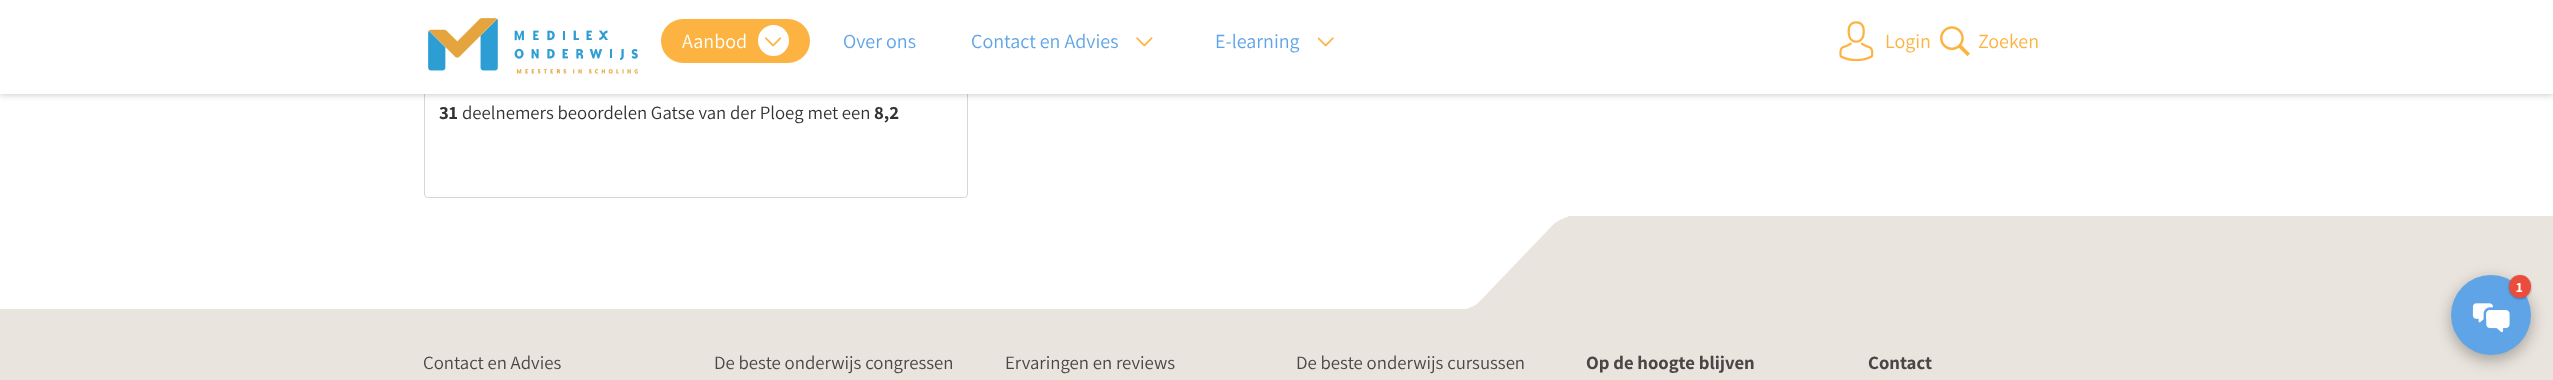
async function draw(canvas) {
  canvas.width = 2553
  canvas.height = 380
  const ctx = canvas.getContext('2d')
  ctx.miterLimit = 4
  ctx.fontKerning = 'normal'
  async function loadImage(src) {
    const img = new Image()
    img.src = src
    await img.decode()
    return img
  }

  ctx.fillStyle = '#fff'
  ctx.fillRect(0, 0, 2553, 380)
  ctx.beginPath()
  ctx.roundRect(424.5, -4.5, 543, 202, 3.5)
  ctx.strokeStyle = '#d8d5d3'
  ctx.stroke()
  ctx.fillStyle = '#00000033'
  ctx.filter = 'blur(3px)'
  ctx.beginPath()
  ctx.rect(0, 1, 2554, 94)
  ctx.fill()
  ctx.filter = 'none'
  ctx.fillStyle = '#fff'
  ctx.fillRect(0, 0, 2553, 94)
  ctx.drawImage(await loadImage('image0.png'), 428, 18, 210, 56)
  ctx.fillStyle = '#fcb341'
  ctx.beginPath()
  ctx.roundRect(661, 19, 149, 44, 22)
  ctx.fill()
  ctx.font = '200 20px Assistant'
  ctx.fillStyle = '#fff'
  ctx.fillText('Aanbod', 682, 48)
  ctx.beginPath()
  ctx.arc(773.5, 40.5, 15.5, 0, 2 * Math.PI)
  ctx.fill()
  ctx.drawImage(await loadImage('image1.png'), 765, 37, 16, 10)
  ctx.fillStyle = '#60a4e8'
  ctx.fillText('Over ons', 843, 48)
  ctx.fillText('Contact en Advies', 971, 48)
  ctx.drawImage(await loadImage('image2.png'), 1136, 37, 17, 10)
  ctx.fillText('E-learning', 1215, 48)
  ctx.drawImage(await loadImage('image3.png'), 1318, 37, 16, 10)
  ctx.drawImage(await loadImage('image4.png'), 1839, 21, 35, 40)
  ctx.fillStyle = '#fcb341'
  ctx.fillText('Login', 1885, 48)
  ctx.drawImage(await loadImage('image5.png'), 1940, 26, 30, 30)
  ctx.fillText('Zoeken', 1978, 48)
  ctx.font = '200 18.75px "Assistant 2"'
  ctx.fillStyle = '#333'
  ctx.fillText('31', 439, 119)
  ctx.font = '200 18.75px Assistant'
  ctx.fillText('deelnemers beoordelen Gatse van der Ploeg met een', 462, 119)
  ctx.font = '200 18.75px "Assistant 2"'
  ctx.fillText('8,2', 874, 119)
  ctx.fillStyle = '#e9e4dd'
  ctx.fillRect(1568, 216, 985, 93)
  ctx.save()
  ctx.beginPath()
  ctx.rect(1450, 216, 118, 93)
  ctx.clip()
  ctx.beginPath()
  ctx.moveTo(1017, 311)
  ctx.lineTo(1450, 311)
  ctx.bezierCurveTo(1450, 311, 1469, 312, 1479, 302)
  ctx.lineTo(1550, 228)
  ctx.bezierCurveTo(1550, 228, 1559, 215, 1581, 215)
  ctx.lineTo(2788, 215)
  ctx.lineTo(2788, 347)
  ctx.lineTo(996, 347)
  ctx.lineTo(996, 311)
  ctx.closePath()
  ctx.fill()
  ctx.restore()
  ctx.fillRect(0, 309, 2553, 71)
  ctx.font = '200 18.75px Assistant'
  ctx.fillStyle = '#4b4545'
  ctx.fillText('Contact en Advies', 423, 369)
  ctx.fillText('De beste onderwijs congressen', 714, 369)
  ctx.fillText('Ervaringen en reviews', 1005, 369)
  ctx.fillText('De beste onderwijs cursussen', 1296, 369)
  ctx.font = '200 18.75px "Assistant 2"'
  ctx.fillText('Op de hoogte blijven', 1586, 369)
  ctx.fillText('Contact', 1868, 369)
  ctx.fillStyle = '#0000004d'
  ctx.filter = 'blur(7.5px)'
  ctx.beginPath()
  ctx.roundRect(2451, 280, 80, 80, 40)
  ctx.fill()
  ctx.filter = 'none'
  ctx.fillStyle = '#60a4e8'
  ctx.beginPath()
  ctx.arc(2491, 315, 40, 0, 2 * Math.PI)
  ctx.fill()
  ctx.fillStyle = '#0000004d'
  ctx.filter = 'blur(1px)'
  ctx.beginPath()
  ctx.roundRect(2509, 276, 22, 23, 11)
  ctx.fill()
  ctx.filter = 'none'
  ctx.fillStyle = '#eb4d3d'
  ctx.beginPath()
  ctx.roundRect(2509, 275, 22, 23, 11)
  ctx.fill()
  ctx.font = '200 14px "Assistant 2"'
  ctx.fillStyle = '#fff'
  ctx.fillText('1', 2516, 292)
  ctx.drawImage(await loadImage('image6.png'), 2472, 303, 38, 30)
}

draw(document.querySelector('canvas'))
